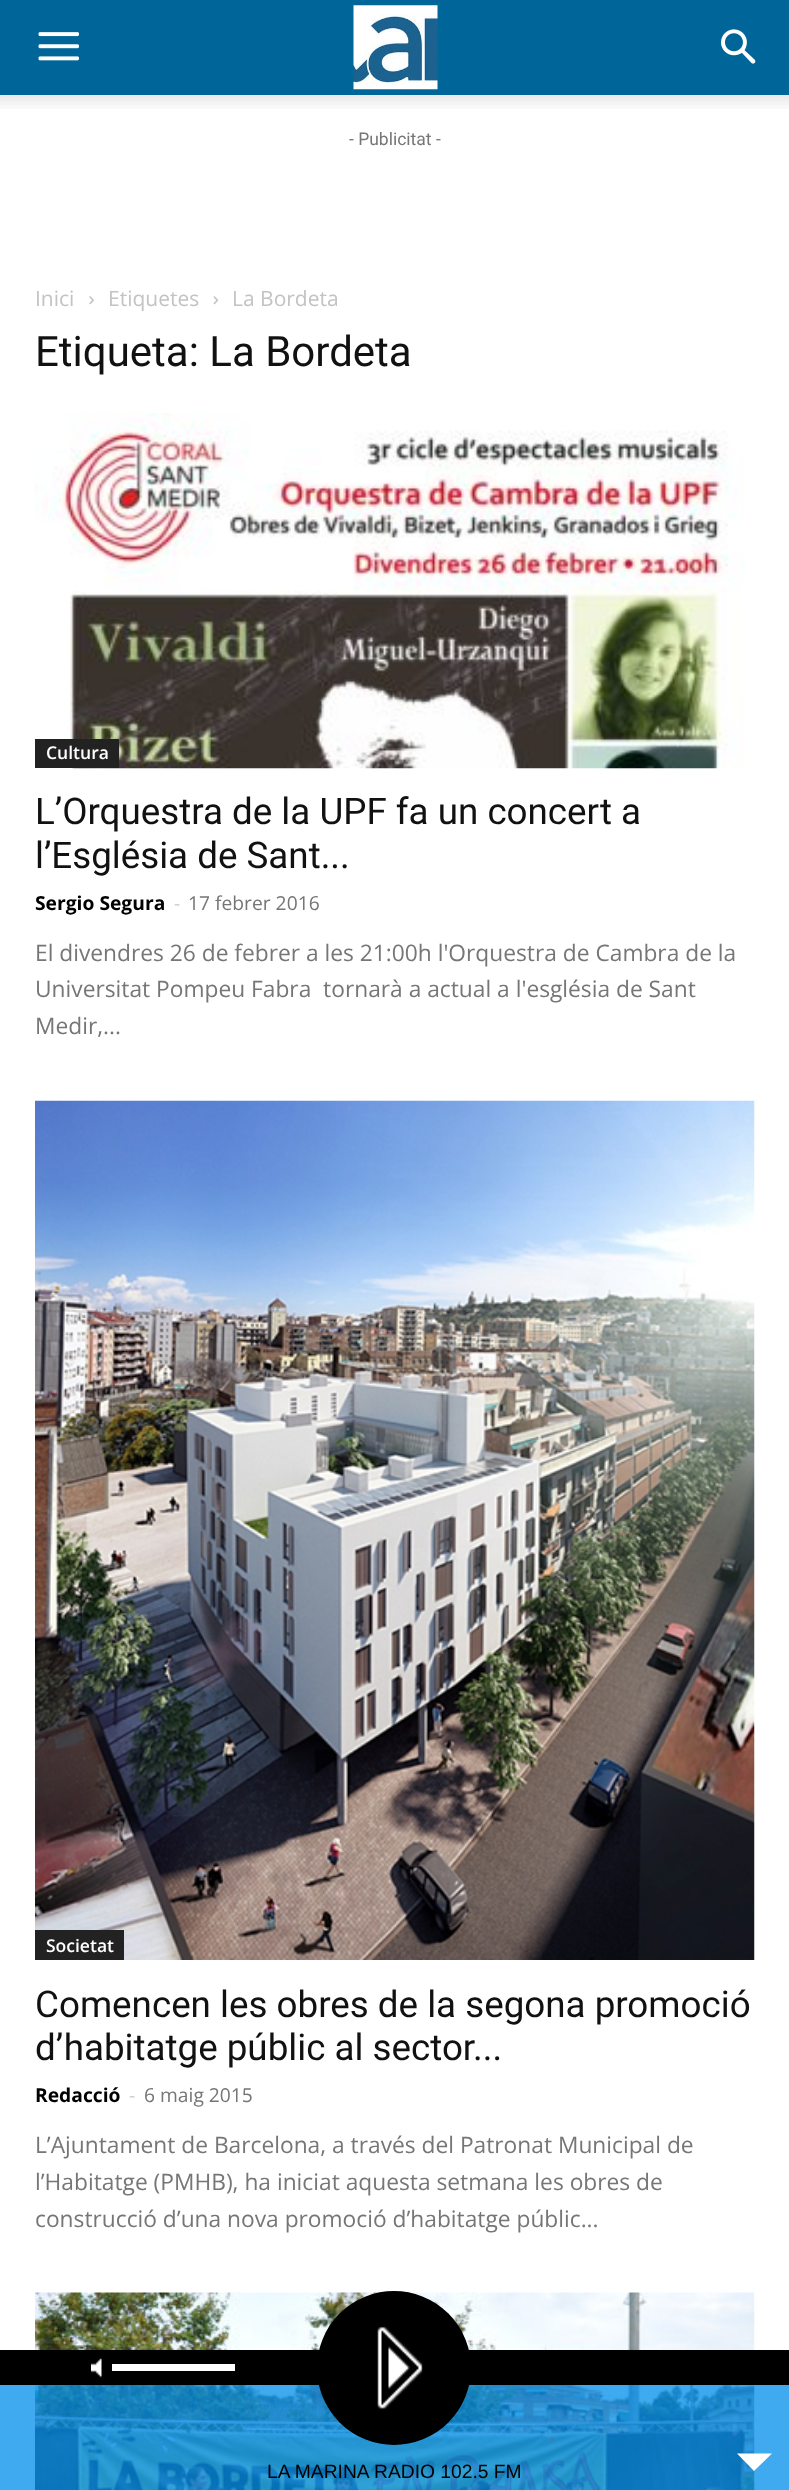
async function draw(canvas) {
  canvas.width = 789
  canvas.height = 2490
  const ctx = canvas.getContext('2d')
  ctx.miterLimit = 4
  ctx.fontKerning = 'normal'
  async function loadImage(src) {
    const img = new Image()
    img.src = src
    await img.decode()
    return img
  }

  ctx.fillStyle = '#fff'
  ctx.fillRect(0, 0, 789, 2490)
  ctx.fillStyle = '#069'
  ctx.fillRect(0, 0, 789, 95)
  ctx.drawImage(await loadImage('image0.png'), 38, 32, 41, 29)
  ctx.drawImage(await loadImage('image1.png'), 353, 5, 85, 85)
  ctx.drawImage(await loadImage('image2.png'), 721, 29, 35, 35)
  ctx.drawImage(await loadImage('image3.png'), 0, 95, 789, 14)
  ctx.font = '17.5px Roboto'
  ctx.fillStyle = '#767676'
  ctx.fillText('- Publicitat -', 349, 145)
  ctx.font = '21px Open Sans'
  ctx.fillStyle = '#c3c3c3'
  ctx.fillText('Inici', 35, 306)
  ctx.drawImage(await loadImage('image4.png'), 89, 296, 5, 9)
  ctx.fillText('Etiquetes', 108, 306)
  ctx.drawImage(await loadImage('image5.png'), 213, 296, 6, 9)
  ctx.fillText('La Bordeta', 232, 306)
  ctx.font = '42px Roboto'
  ctx.fillStyle = '#111'
  ctx.fillText('Etiqueta: La Bordeta', 35, 366)
  ctx.drawImage(await loadImage('image6.png'), 35, 413, 710, 356)
  ctx.fillStyle = '#222'
  ctx.fillRect(35, 739, 84, 29)
  ctx.font = '600 17.5px Open Sans'
  ctx.fillStyle = '#fff'
  ctx.fillText('Cultura', 46, 759)
  ctx.font = '36.75px Roboto'
  ctx.fillStyle = '#111'
  ctx.fillText('L’Orquestra de la UPF fa un concert a', 35, 824)
  ctx.fillText('l’Església de Sant...', 35, 868)
  ctx.font = 'bold 19.25px Open Sans'
  ctx.fillStyle = '#000'
  ctx.fillText('Sergio Segura', 35, 910)
  ctx.font = '19.25px Open Sans'
  ctx.fillStyle = '#ccc'
  ctx.fillText('-', 174, 910)
  ctx.fillStyle = '#767676'
  ctx.fillText('17 febrer 2016', 188, 910)
  ctx.font = '22.75px Open Sans'
  ctx.fillText('El divendres 26 de febrer a les 21:00h l\'Orquestra de Cambra de la', 35, 961)
  ctx.fillText('Universitat Pompeu Fabra  tornarà a actual a l\'església de Sant', 35, 997)
  ctx.fillText('Medir,...', 35, 1034)
  ctx.drawImage(await loadImage('image7.png'), 35, 1100, 720, 860)
  ctx.fillStyle = '#222'
  ctx.fillRect(35, 1930, 89, 30)
  ctx.font = '600 17.5px Open Sans'
  ctx.fillStyle = '#fff'
  ctx.fillText('Societat', 46, 1952)
  ctx.font = '36.75px Roboto'
  ctx.fillStyle = '#111'
  ctx.fillText('Comencen les obres de la segona promoció', 35, 2017)
  ctx.fillText('d’habitatge públic al sector...', 35, 2060)
  ctx.font = 'bold 19.25px Open Sans'
  ctx.fillStyle = '#000'
  ctx.fillText('Redacció', 35, 2102)
  ctx.font = '19.25px Open Sans'
  ctx.fillStyle = '#ccc'
  ctx.fillText('-', 129, 2102)
  ctx.fillStyle = '#767676'
  ctx.fillText('6 maig 2015', 144, 2102)
  ctx.font = '22.75px Open Sans'
  ctx.fillText('L’Ajuntament de Barcelona, a través del Patronat Municipal de', 35, 2153)
  ctx.fillText('l’Habitatge (PMHB), ha iniciat aquesta setmana les obres de', 35, 2190)
  ctx.fillText('construcció d’una nova promoció d’habitatge públic...', 35, 2227)
  ctx.drawImage(await loadImage('image8.png'), 35, 2292, 720, 198)
  ctx.fillStyle = '#000'
  ctx.fillRect(0, 2350, 789, 35)
  ctx.fillStyle = '#008debbf'
  ctx.fillRect(0, 2385, 789, 105)
  ctx.fillStyle = '#000'
  ctx.beginPath()
  ctx.arc(394, 2368, 73.5, 0, 2 * Math.PI)
  ctx.fill()
  ctx.strokeStyle = '#000'
  ctx.lineWidth = 7
  ctx.stroke()
  ctx.drawImage(await loadImage('image9.png'), 91, 2358, 11, 20)
  ctx.fillStyle = '#fff'
  ctx.fillRect(112, 2364, 123, 7)
  ctx.drawImage(await loadImage('image10.png'), 377, 2326, 46, 84)
  ctx.font = '19.25px Liberation Sans'
  ctx.fillStyle = '#000'
  ctx.fillText('LA MARINA RADIO 102.5 FM', 267, 2478)
  ctx.fillStyle = '#fff'
  ctx.beginPath()
  ctx.moveTo(737, 2453.5)
  ctx.lineTo(772, 2453.5)
  ctx.lineTo(754, 2471)
  ctx.closePath()
  ctx.fill()
}

draw(document.querySelector('canvas'))
